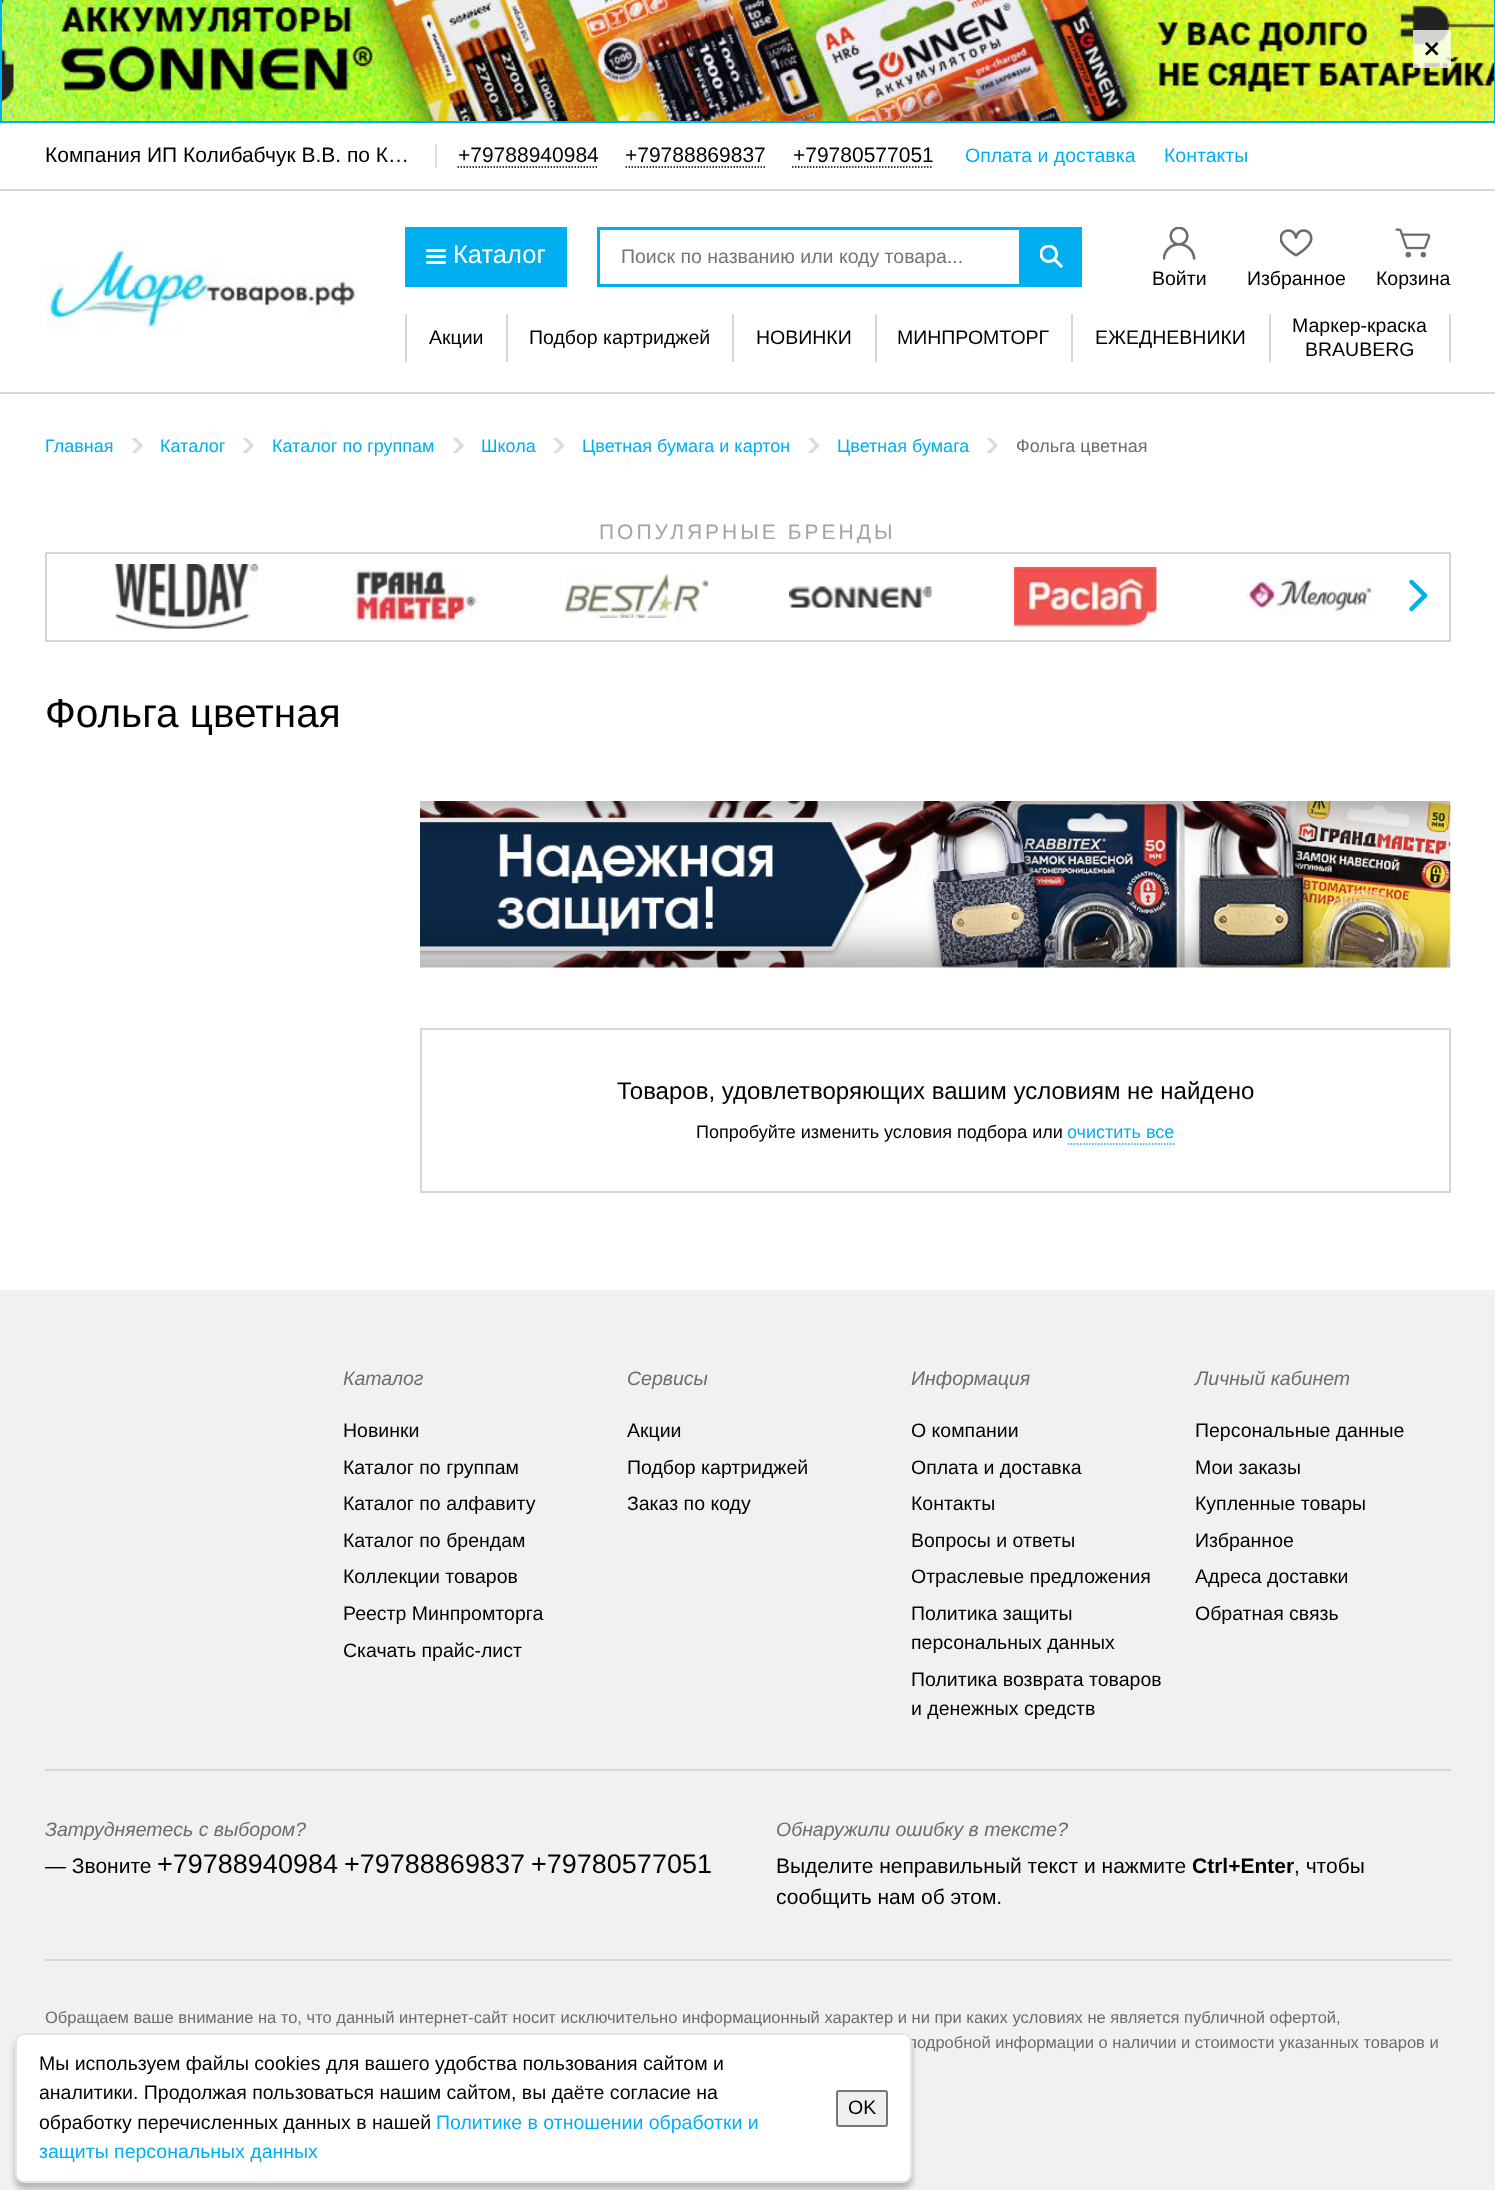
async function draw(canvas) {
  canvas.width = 1495
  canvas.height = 2190
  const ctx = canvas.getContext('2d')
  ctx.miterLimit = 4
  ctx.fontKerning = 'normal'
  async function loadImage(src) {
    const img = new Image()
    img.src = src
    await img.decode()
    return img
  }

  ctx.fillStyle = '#fff'
  ctx.fillRect(0, 0, 1495, 2190)
  ctx.drawImage(await loadImage('image0.png'), 2, 0, 1492, 121)
  ctx.strokeStyle = '#00aff0'
  ctx.lineWidth = 2
  ctx.strokeRect(1, -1, 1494, 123)
  ctx.fillStyle = '#ffffffcc'
  ctx.fillRect(1413, 30, 38, 38)
  ctx.drawImage(await loadImage('image1.png'), 1425, 42, 14, 14)
  ctx.fillStyle = '#d6d6d6'
  ctx.fillRect(0, 189, 1495, 2)
  ctx.font = '21px Liberation Sans'
  ctx.fillStyle = '#000'
  ctx.fillText('Компания ИП Колибабчук В.В. по К…', 45, 162)
  ctx.fillStyle = '#dedede'
  ctx.fillRect(435, 144, 2, 24)
  ctx.fillStyle = '#000'
  ctx.fillText('+79788940984', 458, 162)
  ctx.beginPath()
  ctx.moveTo(457.5, 167)
  ctx.lineTo(598.5, 167)
  ctx.strokeStyle = '#000'
  ctx.lineWidth = 1.5
  ctx.setLineDash([1.5, 1.5])
  ctx.stroke()
  ctx.fillText('+79788869837', 625, 162)
  ctx.beginPath()
  ctx.moveTo(625.5, 167)
  ctx.lineTo(766.5, 167)
  ctx.stroke()
  ctx.fillText('+79780577051', 793, 162)
  ctx.beginPath()
  ctx.moveTo(792, 167)
  ctx.lineTo(933, 167)
  ctx.stroke()
  ctx.font = '19.5px Liberation Sans'
  ctx.fillStyle = '#00aff0'
  ctx.fillText('Оплата и доставка', 965, 162)
  ctx.fillText('Контакты', 1164, 162)
  ctx.fillStyle = '#d6d6d6'
  ctx.fillRect(0, 392, 1495, 2)
  ctx.drawImage(await loadImage('image2.png'), 45, 241, 312, 91)
  ctx.fillStyle = '#00aff0'
  ctx.fillRect(405, 227, 162, 60)
  ctx.fillStyle = '#fff'
  ctx.beginPath()
  ctx.roundRect(426, 255, 20, 3, 1.5)
  ctx.fill()
  ctx.beginPath()
  ctx.roundRect(426, 249, 20, 3, 1.5)
  ctx.fill()
  ctx.beginPath()
  ctx.roundRect(426, 261, 20, 3, 1.5)
  ctx.fill()
  ctx.font = '25.5px Liberation Sans'
  ctx.fillText('Каталог', 453, 263)
  ctx.strokeStyle = '#00aff0'
  ctx.lineWidth = 3
  ctx.setLineDash([])
  ctx.strokeRect(598.5, 228.5, 482, 57)
  ctx.font = '19.5px Liberation Sans'
  ctx.fillStyle = '#757575'
  ctx.fillText('Поиск по названию или коду товара...', 621, 263)
  ctx.fillStyle = '#00aff0'
  ctx.fillRect(1019, 230, 60, 54)
  ctx.drawImage(await loadImage('image3.png'), 1040, 245, 23, 23)
  ctx.drawImage(await loadImage('image4.png'), 1163, 227, 33, 33)
  ctx.fillStyle = '#000'
  ctx.fillText('Войти', 1152, 285)
  ctx.drawImage(await loadImage('image5.png'), 1280, 229, 33, 28)
  ctx.fillText('Избранное', 1247, 285)
  ctx.drawImage(await loadImage('image6.png'), 1395, 228, 36, 30)
  ctx.fillText('Корзина', 1376, 285)
  ctx.fillStyle = '#d6d6d6'
  ctx.fillRect(506, 314, 2, 48)
  ctx.fillRect(405, 314, 2, 48)
  ctx.fillStyle = '#000'
  ctx.fillText('Акции', 429, 344)
  ctx.fillStyle = '#d6d6d6'
  ctx.fillRect(732, 314, 2, 48)
  ctx.fillStyle = '#000'
  ctx.fillText('Подбор картриджей', 529, 344)
  ctx.fillStyle = '#d6d6d6'
  ctx.fillRect(875, 314, 2, 48)
  ctx.fillStyle = '#000'
  ctx.fillText('НОВИНКИ', 756, 344)
  ctx.fillStyle = '#d6d6d6'
  ctx.fillRect(1071, 314, 2, 48)
  ctx.fillStyle = '#000'
  ctx.fillText('МИНПРОМТОРГ', 897, 344)
  ctx.fillStyle = '#d6d6d6'
  ctx.fillRect(1269, 314, 2, 48)
  ctx.fillStyle = '#000'
  ctx.fillText('ЕЖЕДНЕВНИКИ', 1095, 344)
  ctx.fillStyle = '#d6d6d6'
  ctx.fillRect(1449, 314, 2, 48)
  ctx.fillStyle = '#000'
  ctx.fillText('Маркер-краска', 1292, 332)
  ctx.fillText('BRAUBERG', 1305, 356)
  ctx.font = '18px Liberation Sans'
  ctx.fillStyle = '#00aff0'
  ctx.fillText('Главная', 45, 452)
  ctx.drawImage(await loadImage('image7.png'), 132, 438, 11, 15)
  ctx.fillText('Каталог', 160, 452)
  ctx.drawImage(await loadImage('image7.png'), 243, 438, 11, 15)
  ctx.fillText('Каталог по группам', 272, 452)
  ctx.drawImage(await loadImage('image8.png'), 453, 438, 11, 15)
  ctx.fillText('Школа', 481, 452)
  ctx.drawImage(await loadImage('image9.png'), 553, 438, 11, 15)
  ctx.fillText('Цветная бумага и картон', 582, 452)
  ctx.drawImage(await loadImage('image10.png'), 808, 438, 11, 15)
  ctx.fillText('Цветная бумага', 837, 452)
  ctx.drawImage(await loadImage('image7.png'), 987, 438, 11, 15)
  ctx.fillStyle = '#6c6c6c'
  ctx.fillText('Фольга цветная', 1016, 452)
  ctx.letterSpacing = '3px'
  ctx.font = '21px Liberation Sans'
  ctx.fillStyle = '#a4a4a4'
  ctx.fillText('ПОПУЛЯРНЫЕ БРЕНДЫ', 599, 539)
  ctx.strokeStyle = '#d6d6d6'
  ctx.lineWidth = 2
  ctx.strokeRect(46, 553, 1404, 88)
  ctx.drawImage(await loadImage('image11.png'), 115, 564, 143, 65)
  ctx.drawImage(await loadImage('image12.png'), 352, 568, 127, 56)
  ctx.drawImage(await loadImage('image13.png'), 565, 574, 143, 44)
  ctx.drawImage(await loadImage('image14.png'), 789, 586, 143, 22)
  ctx.drawImage(await loadImage('image15.png'), 1014, 567, 143, 60)
  ctx.drawImage(await loadImage('image16.png'), 1246, 577, 126, 38)
  ctx.drawImage(await loadImage('image17.png'), 1409, 579, 19, 33)
  ctx.letterSpacing = '0px'
  ctx.font = '40.5px Liberation Sans'
  ctx.fillStyle = '#000'
  ctx.fillText('Фольга цветная', 45, 727)
  ctx.drawImage(await loadImage('image18.png'), 420, 801, 1031, 167)
  ctx.strokeRect(421, 1029, 1029, 163)
  ctx.font = '24px Liberation Sans'
  ctx.fillText('Товаров, удовлетворяющих вашим условиям не найдено', 617, 1099)
  ctx.font = '18px Liberation Sans'
  ctx.fillText('Попробуйте изменить условия подбора или', 696, 1138)
  ctx.fillStyle = '#00aff0'
  ctx.fillText('очистить все', 1067, 1138)
  ctx.beginPath()
  ctx.moveTo(1068, 1144)
  ctx.lineTo(1174.5, 1144)
  ctx.strokeStyle = '#00aff0'
  ctx.lineWidth = 1.5
  ctx.setLineDash([1.5, 1.5])
  ctx.stroke()
  ctx.fillStyle = '#f1f1f1'
  ctx.fillRect(0, 1290, 1495, 900)
  ctx.font = 'italic 19.5px Liberation Sans'
  ctx.fillStyle = '#6c6c6c'
  ctx.fillText('Каталог', 343, 1385)
  ctx.font = '19.5px Liberation Sans'
  ctx.fillStyle = '#000'
  ctx.fillText('Новинки', 343, 1437)
  ctx.fillText('Каталог по группам', 343, 1474)
  ctx.fillText('Каталог по алфавиту', 343, 1510)
  ctx.fillText('Каталог по брендам', 343, 1547)
  ctx.fillText('Коллекции товаров', 343, 1583)
  ctx.fillText('Реестр Минпромторга', 343, 1620)
  ctx.fillText('Скачать прайс-лист', 343, 1657)
  ctx.font = 'italic 19.5px Liberation Sans'
  ctx.fillStyle = '#6c6c6c'
  ctx.fillText('Сервисы', 627, 1385)
  ctx.font = '19.5px Liberation Sans'
  ctx.fillStyle = '#000'
  ctx.fillText('Акции', 627, 1437)
  ctx.fillText('Подбор картриджей', 627, 1474)
  ctx.fillText('Заказ по коду', 627, 1510)
  ctx.font = 'italic 19.5px Liberation Sans'
  ctx.fillStyle = '#6c6c6c'
  ctx.fillText('Информация', 911, 1385)
  ctx.font = '19.5px Liberation Sans'
  ctx.fillStyle = '#000'
  ctx.fillText('О компании', 911, 1437)
  ctx.fillText('Оплата и доставка', 911, 1474)
  ctx.fillText('Контакты', 911, 1510)
  ctx.fillText('Вопросы и ответы', 911, 1547)
  ctx.fillText('Отраслевые предложения', 911, 1583)
  ctx.fillText('Политика защиты', 911, 1620)
  ctx.fillText('персональных данных', 911, 1649)
  ctx.fillText('Политика возврата товаров', 911, 1686)
  ctx.fillText('и денежных средств', 911, 1715)
  ctx.font = 'italic 19.5px Liberation Sans'
  ctx.fillStyle = '#6c6c6c'
  ctx.fillText('Личный кабинет', 1195, 1385)
  ctx.font = '19.5px Liberation Sans'
  ctx.fillStyle = '#000'
  ctx.fillText('Персональные данные', 1195, 1437)
  ctx.fillText('Мои заказы', 1195, 1474)
  ctx.fillText('Купленные товары', 1195, 1510)
  ctx.fillText('Избранное', 1195, 1547)
  ctx.fillText('Адреса доставки', 1195, 1583)
  ctx.fillText('Обратная связь', 1195, 1620)
  ctx.fillStyle = '#d6d6d6'
  ctx.fillRect(45, 1769, 1406, 2)
  ctx.font = 'italic 19.5px Liberation Sans'
  ctx.fillStyle = '#6c6c6c'
  ctx.fillText('Затрудняетесь с выбором?', 45, 1836)
  ctx.font = '21px Liberation Sans'
  ctx.fillStyle = '#000'
  ctx.fillText('— Звоните', 45, 1873)
  ctx.font = '27px Liberation Sans'
  ctx.fillText('+79788940984', 157, 1873)
  ctx.fillText('+79788869837', 344, 1873)
  ctx.fillText('+79780577051', 531, 1873)
  ctx.font = 'italic 19.5px Liberation Sans'
  ctx.fillStyle = '#6c6c6c'
  ctx.fillText('Обнаружили ошибку в тексте?', 776, 1836)
  ctx.font = '21px Liberation Sans'
  ctx.fillStyle = '#000'
  ctx.fillText('Выделите неправильный текст и нажмите', 776, 1873)
  ctx.font = 'bold 21px Liberation Sans'
  ctx.fillText('Ctrl+Enter', 1192, 1873)
  ctx.font = '21px Liberation Sans'
  ctx.fillText(', чтобы', 1294, 1873)
  ctx.fillText('сообщить нам об этом.', 776, 1904)
  ctx.fillStyle = '#d6d6d6'
  ctx.fillRect(45, 1959, 1406, 2)
  ctx.font = '16.5px Liberation Sans'
  ctx.fillStyle = '#6c6c6c'
  ctx.fillText('Обращаем ваше внимание на то, что данный интернет-сайт носит исключительно информационный характер и ни при каких условиях не является публичной офертой,', 45, 2023)
  ctx.fillText('подробной информации о наличии и стоимости указанных товаров и', 908, 2048)
  ctx.fillStyle = '#00000040'
  ctx.filter = 'blur(3px)'
  ctx.beginPath()
  ctx.roundRect(15, 2039, 897, 150, 9)
  ctx.fill()
  ctx.filter = 'none'
  ctx.fillStyle = '#fff'
  ctx.beginPath()
  ctx.roundRect(16, 2034, 895, 148, 8)
  ctx.fill()
  ctx.strokeStyle = '#e5e5e5'
  ctx.lineWidth = 2
  ctx.setLineDash([])
  ctx.stroke()
  ctx.font = '19.5px Liberation Sans'
  ctx.fillStyle = '#000'
  ctx.fillText('Мы используем файлы cookies для вашего удобства пользования сайтом и', 39, 2070)
  ctx.fillText('аналитики. Продолжая пользоваться нашим сайтом, вы даёте согласие на', 39, 2099)
  ctx.fillText('обработку перечисленных данных в нашей', 39, 2129)
  ctx.fillStyle = '#00aff0'
  ctx.fillText('Политике в отношении обработки и', 436, 2129)
  ctx.fillText('защиты персональных данных', 39, 2158)
  ctx.fillStyle = '#efefef'
  ctx.beginPath()
  ctx.roundRect(837, 2091, 50, 35, 2)
  ctx.fill()
  ctx.strokeStyle = '#767676'
  ctx.stroke()
  ctx.fillStyle = '#000'
  ctx.fillText('OK', 848, 2114)
}

draw(document.querySelector('canvas'))
